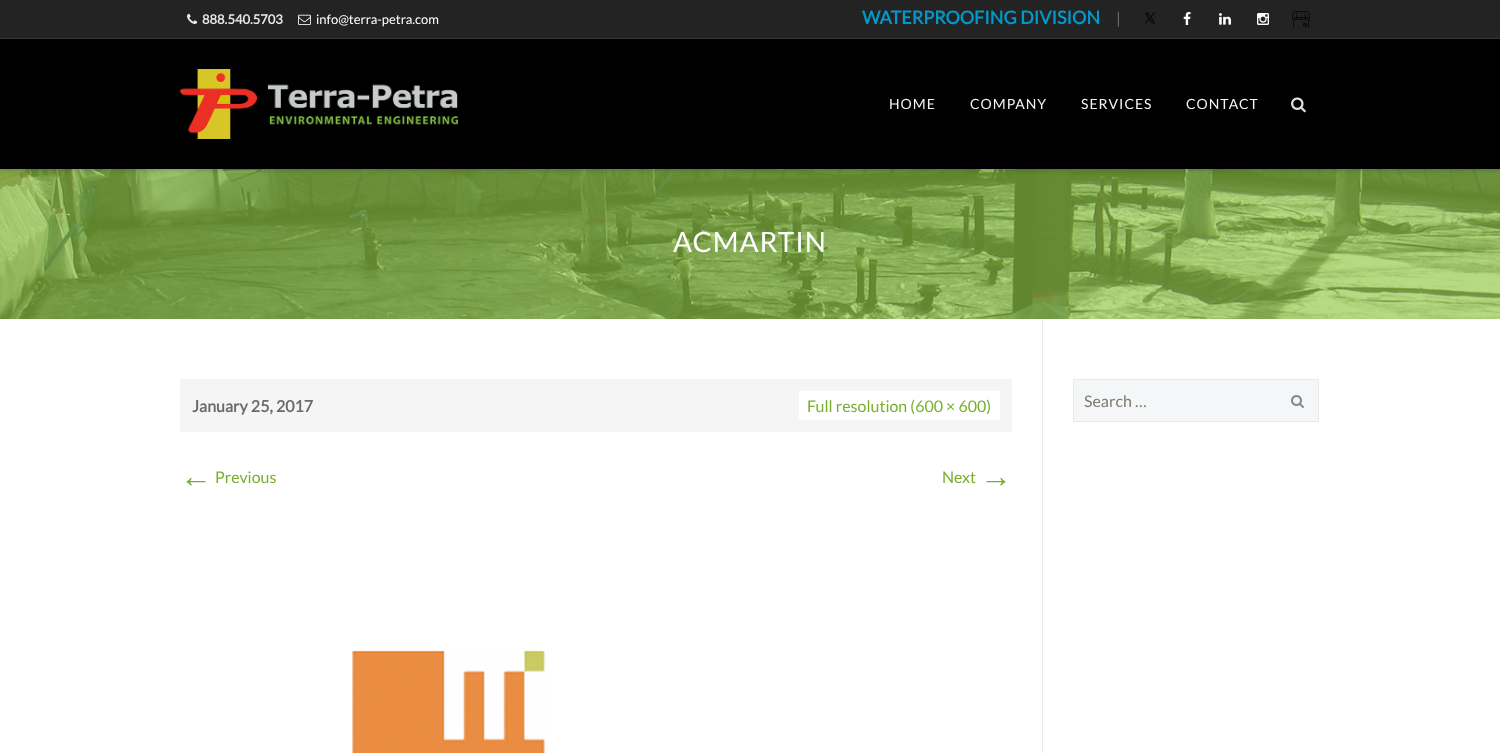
async function draw(canvas) {
  canvas.width = 1500
  canvas.height = 753
  const ctx = canvas.getContext('2d')
  ctx.miterLimit = 4
  ctx.fontKerning = 'normal'
  async function loadImage(src) {
    const img = new Image()
    img.src = src
    await img.decode()
    return img
  }

  ctx.fillStyle = '#fff'
  ctx.fillRect(0, 0, 1500, 753)
  ctx.drawImage(await loadImage('image9.png'), 0, 169, 1500, 150)
  ctx.fillStyle = '#00000033'
  ctx.filter = 'blur(2.5px)'
  ctx.beginPath()
  ctx.rect(0, 1, 1500, 169)
  ctx.fill()
  ctx.filter = 'none'
  ctx.fillStyle = '#232323'
  ctx.fillRect(0, 0, 1500, 38)
  ctx.fillStyle = '#353535'
  ctx.fillRect(0, 38, 1500, 1)
  ctx.drawImage(await loadImage('image0.png'), 187, 13, 11, 11)
  ctx.font = 'bold 13px Lato'
  ctx.fillStyle = '#e9e9e9'
  ctx.fillText('888.540.5703', 202, 24)
  ctx.drawImage(await loadImage('image1.png'), 298, 14, 13, 11)
  ctx.font = '13px Lato'
  ctx.fillStyle = '#fff'
  ctx.fillText('info@terra-petra.com', 316, 24)
  ctx.font = 'bold 18px Lato'
  ctx.fillStyle = '#09c'
  ctx.fillText('WATERPROOFING DIVISION', 862, 24)
  ctx.font = '16px Lato'
  ctx.fillStyle = '#6b6b6b'
  ctx.fillText('|', 1116, 24)
  ctx.drawImage(await loadImage('image2.png'), 1145, 12, 10, 12)
  ctx.drawImage(await loadImage('image3.png'), 1183, 12, 8, 13)
  ctx.drawImage(await loadImage('image4.png'), 1219, 13, 12, 12)
  ctx.drawImage(await loadImage('image5.png'), 1257, 13, 12, 12)
  ctx.drawImage(await loadImage('image6.png'), 1292, 11, 18, 17)
  ctx.fillStyle = '#000'
  ctx.fillRect(0, 39, 1500, 130)
  ctx.drawImage(await loadImage('image7.png'), 180, 69, 278, 70)
  ctx.letterSpacing = '1px'
  ctx.font = '14px Lato'
  ctx.fillStyle = '#f5f5f5'
  ctx.fillText('HOME', 889, 109)
  ctx.fillText('COMPANY', 970, 109)
  ctx.fillText('SERVICES', 1081, 109)
  ctx.fillText('CONTACT', 1186, 109)
  ctx.drawImage(await loadImage('image8.png'), 1291, 97, 15, 16)
  ctx.font = '28px Lato'
  ctx.fillStyle = '#fff'
  ctx.fillText('ACMARTIN', 673, 252)
  ctx.fillStyle = '#eaeaea'
  ctx.fillRect(1042, 319, 1, 434)
  ctx.fillStyle = '#f5f5f5'
  ctx.fillRect(180, 379, 832, 53)
  ctx.letterSpacing = '0px'
  ctx.font = 'bold 16px Lato'
  ctx.fillStyle = '#6b6b6b'
  ctx.fillText('January 25, 2017', 192, 412)
  ctx.fillStyle = '#fff'
  ctx.fillRect(799, 391, 201, 29)
  ctx.font = '16px Lato'
  ctx.fillStyle = '#78af2d'
  ctx.fillText('Full resolution (600 × 600)', 807, 412)
  ctx.font = '32px Liberation Sans'
  ctx.fillText('←', 180, 487)
  ctx.font = '16px Lato'
  ctx.fillText('Previous', 215, 483)
  ctx.fillText('Next', 942, 483)
  ctx.font = '32px Liberation Sans'
  ctx.fillText('→', 980, 487)
  ctx.drawImage(await loadImage('image10.png'), 352, 648, 194, 105)
  ctx.fillStyle = '#f5f6f8'
  ctx.beginPath()
  ctx.rect(1073.5, 379.5, 245, 42)
  ctx.fill()
  ctx.strokeStyle = '#e9e9e9'
  ctx.stroke()
  ctx.font = '16px Lato'
  ctx.fillStyle = '#7d7b6d'
  ctx.fillText('Search …', 1084, 407)
  ctx.drawImage(await loadImage('image11.png'), 1291, 395, 13, 13)
}

draw(document.querySelector('canvas'))
